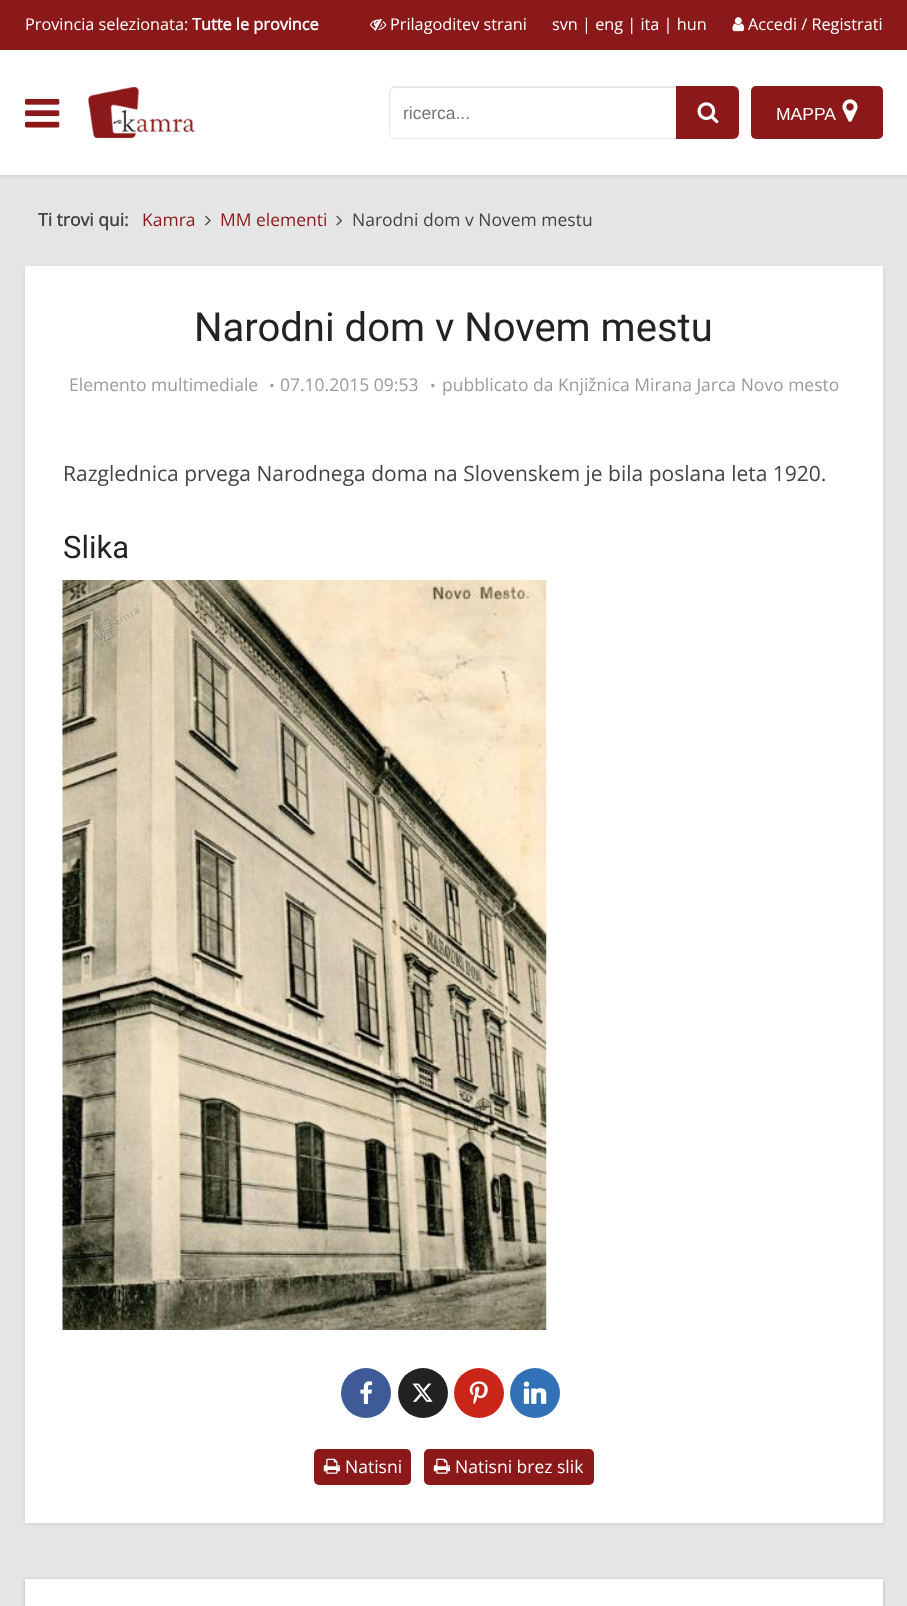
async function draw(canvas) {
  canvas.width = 907
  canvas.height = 1606
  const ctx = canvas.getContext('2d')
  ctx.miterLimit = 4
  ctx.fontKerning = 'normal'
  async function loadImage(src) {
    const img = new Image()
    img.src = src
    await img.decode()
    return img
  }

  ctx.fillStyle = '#e5e5e5'
  ctx.fillRect(0, 0, 907, 1606)
  ctx.fillStyle = '#0000001a'
  ctx.filter = 'blur(2px)'
  ctx.beginPath()
  ctx.rect(0, 1, 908, 175)
  ctx.fill()
  ctx.filter = 'none'
  ctx.fillStyle = '#fff'
  ctx.fillRect(0, 50, 907, 125)
  ctx.fillStyle = '#8c1919'
  ctx.fillRect(0, 0, 907, 50)
  ctx.font = '16.25px Open Sans'
  ctx.fillStyle = '#fff'
  ctx.fillText('Provincia selezionata:', 25, 30)
  ctx.font = 'bold 16.25px Open Sans'
  ctx.fillText('Tutte le province', 192, 30)
  ctx.drawImage(await loadImage('image0.png'), 370, 18, 17, 13)
  ctx.font = '16.25px Open Sans'
  ctx.fillText('Prilagoditev strani', 390, 30)
  ctx.fillText('svn | eng | ita | hun', 552, 30)
  ctx.drawImage(await loadImage('image1.png'), 732, 17, 13, 15)
  ctx.fillText('Accedi / Registrati', 748, 30)
  ctx.drawImage(await loadImage('image2.png'), 25, 98, 35, 30)
  ctx.drawImage(await loadImage('image3.png'), 88, 87, 107, 52)
  ctx.fillStyle = '#e6e6e6'
  ctx.beginPath()
  ctx.moveTo(395, 86)
  ctx.lineTo(676, 86)
  ctx.lineTo(676, 139)
  ctx.lineTo(395, 139)
  ctx.bezierCurveTo(392, 139, 389, 136, 389, 132)
  ctx.lineTo(389, 92)
  ctx.bezierCurveTo(389, 89, 392, 86, 395, 86)
  ctx.closePath()
  ctx.moveTo(395, 88)
  ctx.lineTo(676, 88)
  ctx.lineTo(676, 138)
  ctx.lineTo(395, 138)
  ctx.bezierCurveTo(392, 138, 390, 135, 390, 132)
  ctx.lineTo(390, 92)
  ctx.bezierCurveTo(390, 90, 392, 88, 395, 88)
  ctx.closePath()
  ctx.fill('evenodd')
  ctx.font = '17.5px Liberation Sans'
  ctx.fillStyle = '#757575'
  ctx.fillText('ricerca...', 403, 119)
  ctx.fillStyle = '#8c1919'
  ctx.beginPath()
  ctx.roundRect(676, 86, 63, 53, [0, 6, 6, 0])
  ctx.fill()
  ctx.drawImage(await loadImage('image4.png'), 697, 102, 22, 22)
  ctx.beginPath()
  ctx.roundRect(751, 86, 132, 53, 5)
  ctx.fill()
  ctx.fillStyle = '#fff'
  ctx.fillText('MAPPA', 776, 120)
  ctx.drawImage(await loadImage('image5.png'), 842, 99, 16, 23)
  ctx.font = 'bold 17.5px Open Sans'
  ctx.fillStyle = '#444'
  ctx.fillText('Ti trovi qui:', 38, 226)
  ctx.font = '17.5px Open Sans'
  ctx.fillStyle = '#8c1919'
  ctx.fillText('Kamra', 142, 226)
  ctx.drawImage(await loadImage('image6.png'), 205, 215, 6, 11)
  ctx.fillText('MM elementi', 220, 226)
  ctx.drawImage(await loadImage('image7.png'), 336, 215, 6, 11)
  ctx.fillStyle = '#444'
  ctx.fillText('Narodni dom v Novem mestu', 352, 226)
  ctx.fillStyle = '#0000001a'
  ctx.filter = 'blur(2px)'
  ctx.beginPath()
  ctx.rect(25, 268, 858, 1256)
  ctx.fill()
  ctx.filter = 'none'
  ctx.fillStyle = '#fff'
  ctx.fillRect(25, 266, 858, 1257)
  ctx.font = '40px Roboto'
  ctx.fillStyle = '#232323'
  ctx.fillText('Narodni dom v Novem mestu', 194, 341)
  ctx.font = '17.5px Open Sans'
  ctx.fillStyle = '#9b9b9b'
  ctx.fillText('Elemento multimediale', 69, 391)
  ctx.font = '15px Open Sans'
  ctx.fillText('•', 269, 391)
  ctx.font = '17.5px Open Sans'
  ctx.fillText('07.10.2015 09:53', 280, 391)
  ctx.font = '15px Open Sans'
  ctx.fillText('•', 430, 391)
  ctx.font = '17.5px Open Sans'
  ctx.fillText('pubblicato da Knjižnica Mirana Jarca Novo mesto', 442, 391)
  ctx.font = '21px Open Sans'
  ctx.fillStyle = '#444'
  ctx.fillText('Razglednica prvega Narodnega doma na Slovenskem je bila poslana leta 1920.', 63, 481)
  ctx.font = '31px Roboto'
  ctx.fillStyle = '#232323'
  ctx.fillText('Slika', 63, 558)
  ctx.drawImage(await loadImage('image8.png'), 62, 580, 485, 750)
  ctx.fillStyle = '#3e5b98'
  ctx.beginPath()
  ctx.arc(366, 1393, 25, 0, 2 * Math.PI)
  ctx.fill()
  ctx.drawImage(await loadImage('image9.png'), 360, 1381, 13, 23)
  ctx.fillStyle = '#222'
  ctx.beginPath()
  ctx.arc(423, 1393, 25, 0, 2 * Math.PI)
  ctx.fill()
  ctx.drawImage(await loadImage('image10.png'), 412, 1383, 21, 19)
  ctx.fillStyle = '#c92619'
  ctx.beginPath()
  ctx.arc(479, 1393, 25, 0, 2 * Math.PI)
  ctx.fill()
  ctx.drawImage(await loadImage('image11.png'), 469, 1381, 19, 23)
  ctx.fillStyle = '#3371b7'
  ctx.beginPath()
  ctx.arc(535, 1393, 25, 0, 2 * Math.PI)
  ctx.fill()
  ctx.drawImage(await loadImage('image12.png'), 523, 1381, 24, 23)
  ctx.fillStyle = '#8c1919'
  ctx.beginPath()
  ctx.roundRect(314, 1449, 97, 36, 5)
  ctx.fill()
  ctx.drawImage(await loadImage('image13.png'), 323, 1458, 17, 16)
  ctx.font = '17.5px Open Sans'
  ctx.fillStyle = '#fff'
  ctx.fillText('Natisni', 345, 1473)
  ctx.fillStyle = '#8c1919'
  ctx.beginPath()
  ctx.roundRect(424, 1449, 170, 36, 5)
  ctx.fill()
  ctx.drawImage(await loadImage('image13.png'), 433, 1458, 17, 16)
  ctx.fillStyle = '#fff'
  ctx.fillText('Natisni brez slik', 455, 1473)
  ctx.fillStyle = '#0000001a'
  ctx.filter = 'blur(2px)'
  ctx.beginPath()
  ctx.rect(25, 1580, 858, 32)
  ctx.fill()
  ctx.filter = 'none'
  ctx.filter = 'blur(2px)'
  ctx.beginPath()
  ctx.rect(25, 1580, 858, 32)
  ctx.fill()
  ctx.filter = 'none'
  ctx.fillStyle = '#fff'
  ctx.fillRect(25, 1579, 858, 27)
}

draw(document.querySelector('canvas'))
